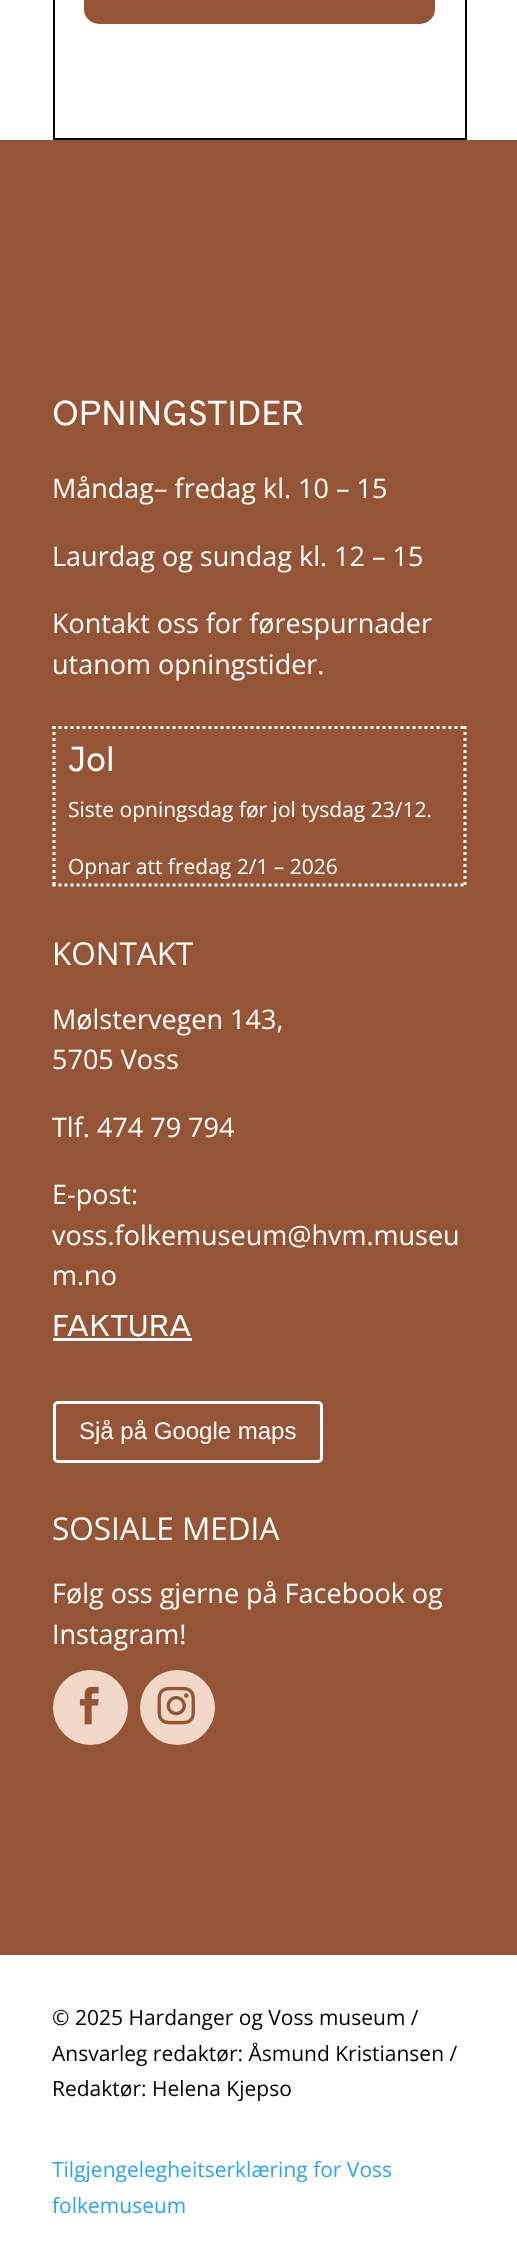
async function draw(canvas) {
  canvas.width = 517
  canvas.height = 2268
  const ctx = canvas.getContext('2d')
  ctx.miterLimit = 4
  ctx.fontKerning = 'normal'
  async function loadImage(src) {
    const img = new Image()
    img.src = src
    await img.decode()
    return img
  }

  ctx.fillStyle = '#965436'
  ctx.fillRect(0, 0, 517, 2268)
  ctx.fillStyle = '#fff'
  ctx.fillRect(0, 0, 517, 140)
  ctx.strokeStyle = '#000'
  ctx.lineWidth = 2
  ctx.strokeRect(54, -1, 412, 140)
  ctx.fillStyle = '#965436'
  ctx.beginPath()
  ctx.roundRect(84, -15, 351, 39, 15)
  ctx.fill()
  ctx.font = '34.5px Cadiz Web'
  ctx.fillStyle = '#fff'
  ctx.fillText('OPNINGSTIDER', 52, 425)
  ctx.font = '27px Open Sans'
  ctx.fillText('Måndag– fredag kl. 10 – 15', 52, 498)
  ctx.fillText('Laurdag og sundag kl. 12 – 15', 52, 566)
  ctx.fillText('Kontakt oss for førespurnader', 52, 633)
  ctx.fillText('utanom opningstider.', 52, 674)
  ctx.beginPath()
  ctx.moveTo(52.5, 727.5)
  ctx.lineTo(466.5, 727.5)
  ctx.strokeStyle = '#fff'
  ctx.lineWidth = 3
  ctx.setLineDash([3, 3])
  ctx.stroke()
  ctx.beginPath()
  ctx.moveTo(465, 726)
  ctx.lineTo(465, 886.5)
  ctx.stroke()
  ctx.beginPath()
  ctx.moveTo(52.5, 885)
  ctx.lineTo(466.5, 885)
  ctx.stroke()
  ctx.beginPath()
  ctx.moveTo(54, 726)
  ctx.lineTo(54, 886.5)
  ctx.stroke()
  ctx.font = '34.5px Cadiz Web'
  ctx.fillText('Jol', 68, 771)
  ctx.font = '21px Open Sans'
  ctx.fillText('Siste opningsdag før jol tysdag 23/12.', 68, 817)
  ctx.fillText('Opnar att fredag 2/1 – 2026', 68, 874)
  ctx.font = '31.5px Open Sans'
  ctx.fillText('KONTAKT', 52, 965)
  ctx.font = '27px Open Sans'
  ctx.fillText('Mølstervegen 143,', 52, 1029)
  ctx.fillText('5705 Voss', 52, 1069)
  ctx.fillText('Tlf. 474 79 794', 52, 1137)
  ctx.fillText('E-post:', 52, 1204)
  ctx.fillText('voss.folkemuseum@hvm.museu', 52, 1245)
  ctx.fillText('m.no', 52, 1285)
  ctx.font = '30px Cadiz Web'
  ctx.fillText('FAKTURA', 52, 1336)
  ctx.fillRect(53, 1338, 139, 3)
  ctx.beginPath()
  ctx.roundRect(54.5, 1402.5, 267, 59, 3.5)
  ctx.setLineDash([])
  ctx.stroke()
  ctx.font = '24px Liberation Sans'
  ctx.fillText('Sjå på Google maps', 79, 1439)
  ctx.font = '31.5px Open Sans'
  ctx.fillText('SOSIALE MEDIA', 52, 1540)
  ctx.font = '27px Open Sans'
  ctx.fillText('Følg oss gjerne på Facebook og', 52, 1603)
  ctx.fillText('Instagram!', 52, 1644)
  ctx.fillStyle = '#f0d7c8'
  ctx.beginPath()
  ctx.arc(90.5, 1707.5, 37.5, 0, 2 * Math.PI)
  ctx.fill()
  ctx.drawImage(await loadImage('image0.png'), 79, 1686, 20, 39)
  ctx.beginPath()
  ctx.arc(177.5, 1707.5, 37.5, 0, 2 * Math.PI)
  ctx.fill()
  ctx.drawImage(await loadImage('image1.png'), 157, 1686, 38, 39)
  ctx.fillStyle = '#fff'
  ctx.fillRect(0, 1955, 517, 313)
  ctx.font = '21px Open Sans'
  ctx.fillStyle = '#000'
  ctx.fillText('© 2025 Hardanger og Voss museum /', 52, 2025)
  ctx.fillText('Ansvarleg redaktør: Åsmund Kristiansen /', 52, 2061)
  ctx.fillText('Redaktør: Helena Kjepso', 52, 2096)
  ctx.fillStyle = '#2ea3f2'
  ctx.fillText('Tilgjengelegheitserklæring for Voss', 52, 2177)
  ctx.fillText('folkemuseum', 52, 2213)
}

draw(document.querySelector('canvas'))
